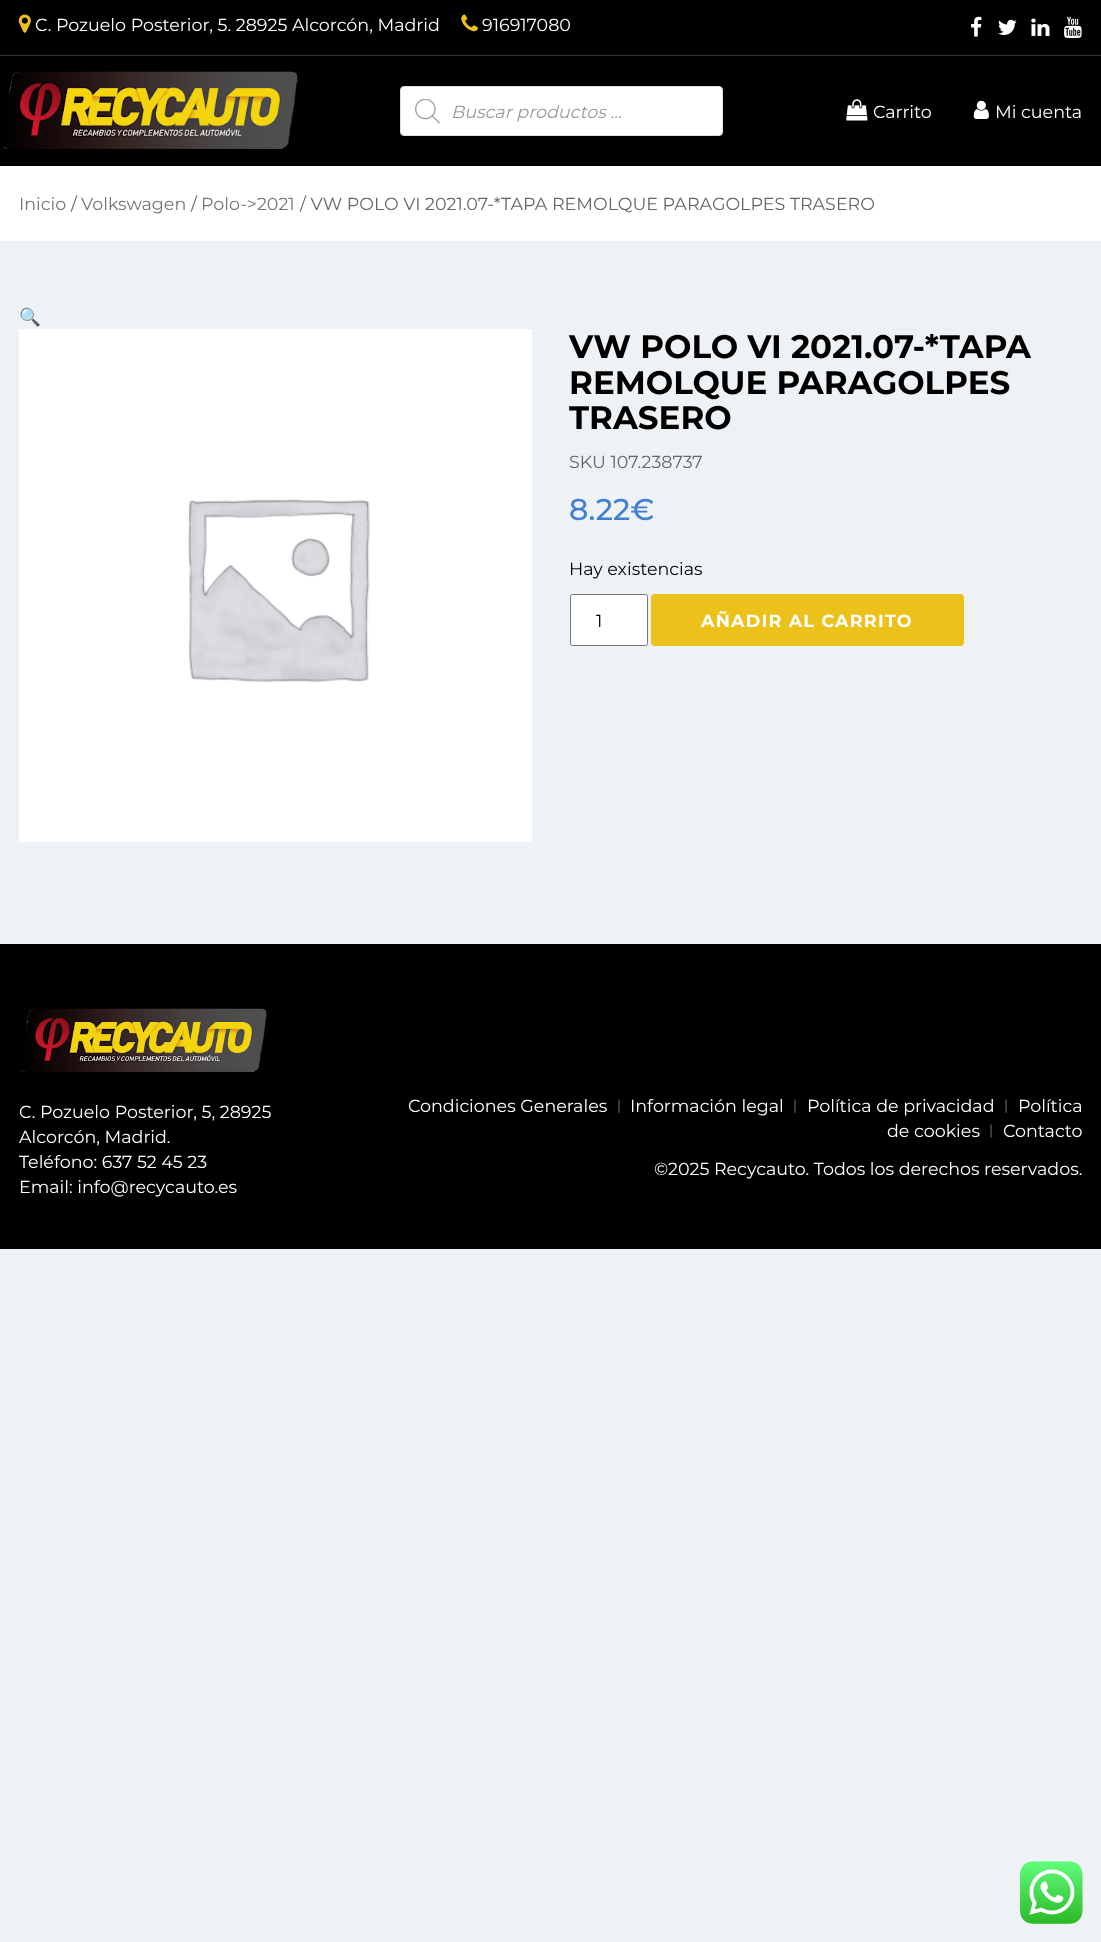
async function draw(canvas) {
  canvas.width = 1101
  canvas.height = 1942
  const ctx = canvas.getContext('2d')
  ctx.miterLimit = 4
  ctx.fontKerning = 'normal'
  async function loadImage(src) {
    const img = new Image()
    img.src = src
    await img.decode()
    return img
  }

  ctx.fillStyle = '#eef2f5'
  ctx.fillRect(0, 0, 1101, 1942)
  ctx.fillStyle = '#000'
  ctx.fillRect(0, 0, 1101, 55)
  ctx.fillStyle = '#333'
  ctx.fillRect(0, 55, 1101, 1)
  ctx.drawImage(await loadImage('image0.png'), 18, 14, 13, 19)
  ctx.font = '17.5px Montserrat'
  ctx.fillStyle = '#fff'
  ctx.fillText('C. Pozuelo Posterior, 5. 28925 Alcorcón, Madrid', 35, 31)
  ctx.drawImage(await loadImage('image1.png'), 461, 14, 17, 18)
  ctx.fillText('916917080', 482, 31)
  ctx.drawImage(await loadImage('image2.png'), 971, 16, 11, 21)
  ctx.drawImage(await loadImage('image3.png'), 998, 19, 19, 16)
  ctx.drawImage(await loadImage('image4.png'), 1031, 18, 19, 18)
  ctx.drawImage(await loadImage('image5.png'), 1064, 16, 18, 22)
  ctx.fillStyle = '#000'
  ctx.fillRect(0, 56, 1101, 110)
  ctx.drawImage(await loadImage('image6.png'), 1, 71, 297, 78)
  ctx.fillStyle = '#fff'
  ctx.beginPath()
  ctx.roundRect(400.5, 86.5, 322, 49, 3.5)
  ctx.fill()
  ctx.strokeStyle = '#ddd'
  ctx.stroke()
  ctx.drawImage(await loadImage('image7.png'), 415, 99, 25, 25)
  ctx.font = 'italic 17.5px Montserrat'
  ctx.fillStyle = '#999'
  ctx.fillText('Buscar productos ...', 451, 118)
  ctx.drawImage(await loadImage('image8.png'), 846, 99, 22, 22)
  ctx.font = '17.5px Montserrat'
  ctx.fillStyle = '#fff'
  ctx.fillText('Carrito', 873, 118)
  ctx.drawImage(await loadImage('image9.png'), 973, 100, 16, 19)
  ctx.fillText('Mi cuenta', 995, 118)
  ctx.fillRect(0, 166, 1101, 75)
  ctx.fillStyle = '#767676'
  ctx.fillText('Inicio', 19, 210)
  ctx.fillStyle = '#666'
  ctx.fillText('/', 71, 210)
  ctx.fillStyle = '#767676'
  ctx.fillText('Volkswagen', 81, 210)
  ctx.fillStyle = '#666'
  ctx.fillText('/', 191, 210)
  ctx.fillStyle = '#767676'
  ctx.fillText('Polo->2021', 201, 210)
  ctx.fillStyle = '#666'
  ctx.fillText('/ VW POLO VI 2021.07-*TAPA REMOLQUE PARAGOLPES TRASERO', 300, 210)
  ctx.font = '17.5px Noto Color Emoji'
  ctx.fillStyle = '#000'
  ctx.fillText('🔍', 19, 323)
  ctx.drawImage(await loadImage('image10.png'), 19, 329, 514, 514)
  ctx.font = 'bold 32.5px Montserrat'
  ctx.fillText('VW POLO VI 2021.07-*TAPA', 569, 358)
  ctx.fillText('REMOLQUE PARAGOLPES', 569, 394)
  ctx.fillText('TRASERO', 569, 429)
  ctx.font = '17.5px Montserrat'
  ctx.fillStyle = '#666'
  ctx.fillText('SKU 107.238737', 569, 468)
  ctx.font = '500 30px Montserrat'
  ctx.fillStyle = '#427ed1'
  ctx.fillText('8.22€', 569, 520)
  ctx.font = '17.5px Montserrat'
  ctx.fillStyle = '#000'
  ctx.fillText('Hay existencias', 569, 575)
  ctx.fillStyle = '#fff'
  ctx.beginPath()
  ctx.roundRect(570.5, 594.5, 77, 51, 2)
  ctx.fill()
  ctx.strokeStyle = '#767676'
  ctx.stroke()
  ctx.fillStyle = '#000'
  ctx.fillText('1', 596, 627)
  ctx.fillStyle = '#ecc21a'
  ctx.beginPath()
  ctx.roundRect(651, 594, 313, 52, 4)
  ctx.fill()
  ctx.letterSpacing = '1.25px'
  ctx.font = 'bold 17.5px Montserrat'
  ctx.fillStyle = '#fff'
  ctx.fillText('AÑADIR AL CARRITO', 701, 627)
  ctx.fillStyle = '#000'
  ctx.fillRect(0, 944, 1101, 305)
  ctx.drawImage(await loadImage('image11.png'), 19, 1008, 248, 64)
  ctx.letterSpacing = '0px'
  ctx.font = '17.5px Montserrat'
  ctx.fillStyle = '#fff'
  ctx.fillText('C. Pozuelo Posterior, 5, 28925', 19, 1118)
  ctx.fillText('Alcorcón, Madrid.', 19, 1143)
  ctx.fillText('Teléfono: 637 52 45 23', 19, 1168)
  ctx.fillText('Email: info@recycauto.es', 19, 1193)
  ctx.fillText('Condiciones Generales', 408, 1112)
  ctx.font = '14px Montserrat'
  ctx.fillStyle = '#767676'
  ctx.fillText('|', 617, 1110)
  ctx.font = '17.5px Montserrat'
  ctx.fillStyle = '#fff'
  ctx.fillText('Información legal', 630, 1112)
  ctx.font = '14px Montserrat'
  ctx.fillStyle = '#767676'
  ctx.fillText('|', 793, 1110)
  ctx.font = '17.5px Montserrat'
  ctx.fillStyle = '#fff'
  ctx.fillText('Política de privacidad', 807, 1112)
  ctx.font = '14px Montserrat'
  ctx.fillStyle = '#767676'
  ctx.fillText('|', 1004, 1110)
  ctx.font = '17.5px Montserrat'
  ctx.fillStyle = '#fff'
  ctx.fillText('Política', 1018, 1112)
  ctx.fillText('de cookies', 887, 1137)
  ctx.font = '14px Montserrat'
  ctx.fillStyle = '#767676'
  ctx.fillText('|', 989, 1135)
  ctx.font = '17.5px Montserrat'
  ctx.fillStyle = '#fff'
  ctx.fillText('Contacto', 1003, 1137)
  ctx.fillText('©2025 Recycauto. Todos los derechos reservados.', 654, 1175)
  ctx.drawImage(await loadImage('image12.png'), 1020, 1861, 63, 63)
}

draw(document.querySelector('canvas'))
